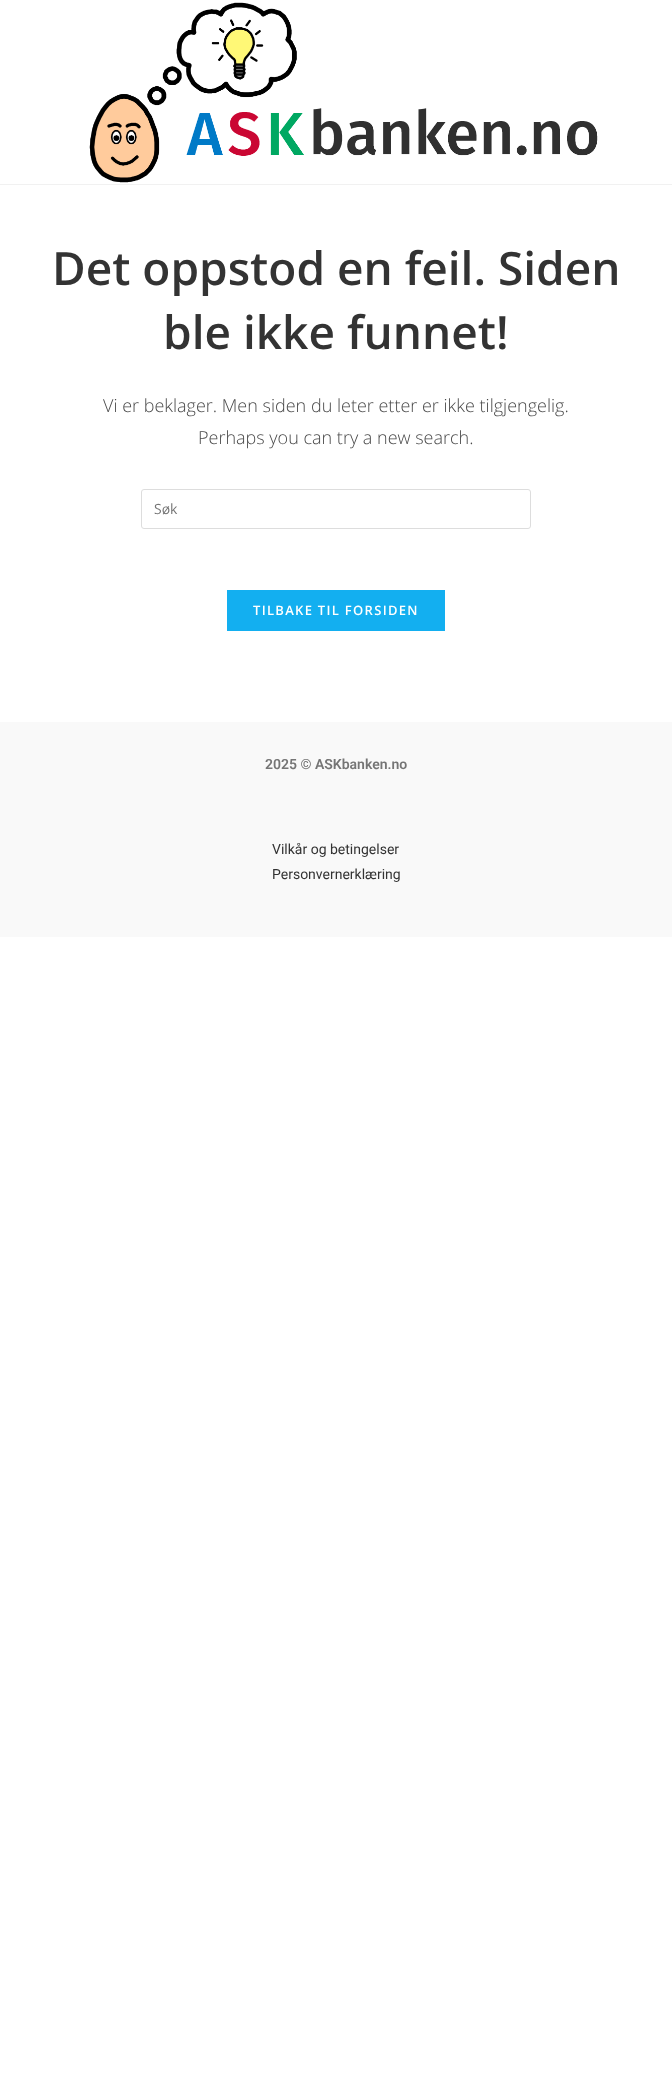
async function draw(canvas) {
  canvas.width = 672
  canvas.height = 2094
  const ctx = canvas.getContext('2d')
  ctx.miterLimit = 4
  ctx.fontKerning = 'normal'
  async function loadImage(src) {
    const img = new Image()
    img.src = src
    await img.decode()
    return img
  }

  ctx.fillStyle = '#fff'
  ctx.fillRect(0, 0, 672, 2094)
  ctx.fillStyle = '#f1f1f1'
  ctx.fillRect(0, 184, 672, 1)
  ctx.drawImage(await loadImage('image0.png'), 89, 2, 509, 181)
  ctx.font = '600 46px Open Sans'
  ctx.fillStyle = '#333'
  ctx.fillText('Det oppstod en feil. Siden', 52, 285)
  ctx.fillText('ble ikke funnet!', 163, 349)
  ctx.font = '300 18px Open Sans'
  ctx.fillStyle = '#4a4a4a'
  ctx.fillText('Vi er beklager. Men siden du leter etter er ikke tilgjengelig.', 103, 412)
  ctx.fillText('Perhaps you can try a new search.', 198, 444)
  ctx.beginPath()
  ctx.roundRect(141.5, 489.5, 389, 39, 2.5)
  ctx.strokeStyle = '#ddd'
  ctx.stroke()
  ctx.font = '14px Open Sans'
  ctx.fillStyle = '#757575'
  ctx.fillText('Søk', 154, 514)
  ctx.fillStyle = '#13aff0'
  ctx.fillRect(227, 590, 218, 41)
  ctx.letterSpacing = '1.3px'
  ctx.font = '600 13px Open Sans'
  ctx.fillStyle = '#fff'
  ctx.fillText('TILBAKE TIL FORSIDEN', 253, 615)
  ctx.fillStyle = '#f9f9f9'
  ctx.fillRect(0, 722, 672, 215)
  ctx.letterSpacing = '0px'
  ctx.font = '600 14px Roboto'
  ctx.fillStyle = '#757575'
  ctx.fillText('2025 © ASKbanken.no', 265, 769)
  ctx.font = '14px Roboto'
  ctx.fillStyle = '#333'
  ctx.fillText('Vilkår og betingelser', 272, 854)
  ctx.fillText('Personvernerklæring', 272, 879)
}

draw(document.querySelector('canvas'))
